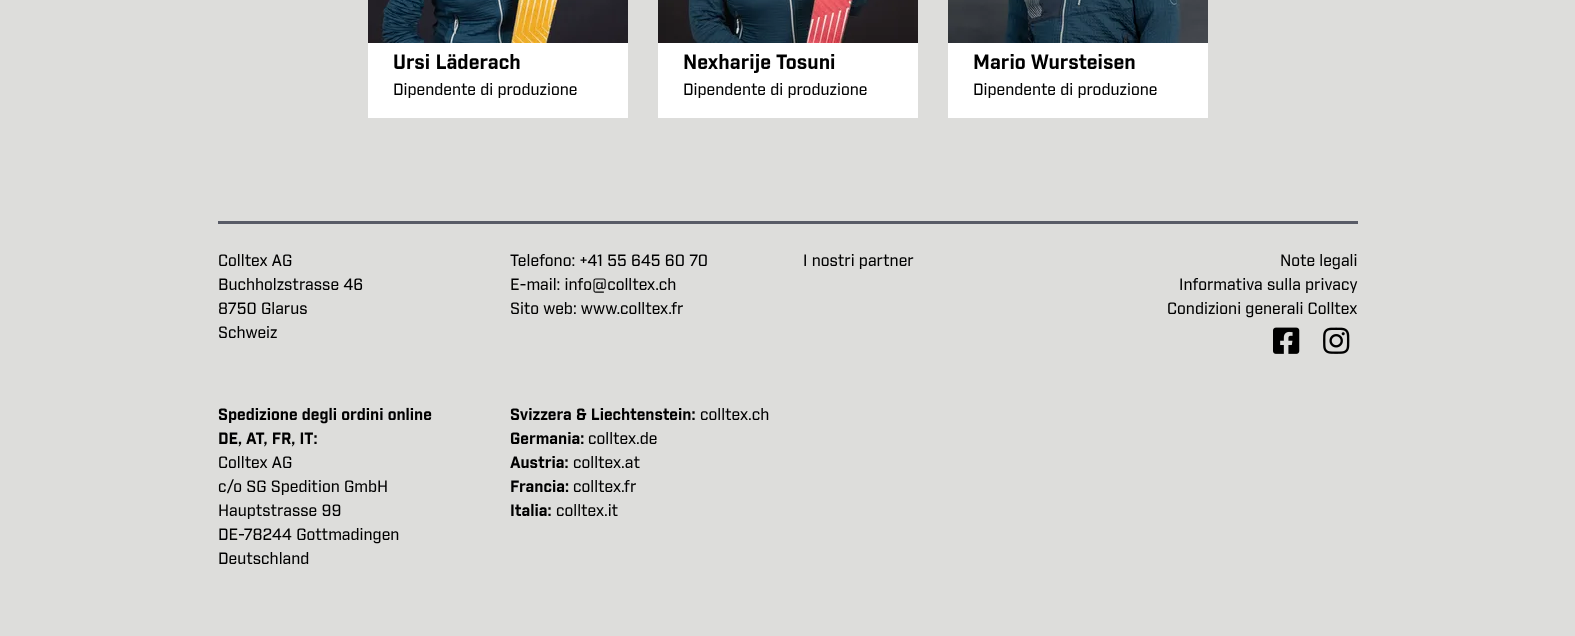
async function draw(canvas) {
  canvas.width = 1575
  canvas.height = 636
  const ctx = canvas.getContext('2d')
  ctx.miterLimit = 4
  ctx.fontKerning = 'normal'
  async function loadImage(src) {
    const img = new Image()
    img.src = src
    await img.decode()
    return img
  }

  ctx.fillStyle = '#dddddb'
  ctx.fillRect(0, 0, 1575, 636)
  ctx.fillStyle = '#fff'
  ctx.fillRect(368, 43, 260, 75)
  ctx.drawImage(await loadImage('image0.png'), 368, 0, 260, 43)
  ctx.font = 'bold 20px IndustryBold'
  ctx.fillStyle = '#000'
  ctx.fillText('Ursi Läderach', 393, 69)
  ctx.font = '500 16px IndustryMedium'
  ctx.fillText('Dipendente di produzione', 393, 95)
  ctx.fillStyle = '#fff'
  ctx.fillRect(658, 43, 260, 75)
  ctx.drawImage(await loadImage('image1.png'), 658, 0, 260, 43)
  ctx.font = 'bold 20px IndustryBold'
  ctx.fillStyle = '#000'
  ctx.fillText('Nexharije Tosuni', 683, 69)
  ctx.font = '500 16px IndustryMedium'
  ctx.fillText('Dipendente di produzione', 683, 95)
  ctx.fillStyle = '#fff'
  ctx.fillRect(948, 43, 260, 75)
  ctx.drawImage(await loadImage('image2.png'), 948, 0, 260, 43)
  ctx.font = 'bold 20px IndustryBold'
  ctx.fillStyle = '#000'
  ctx.fillText('Mario Wursteisen', 973, 69)
  ctx.font = '500 16px IndustryMedium'
  ctx.fillText('Dipendente di produzione', 973, 95)
  ctx.fillStyle = '#585b66'
  ctx.fillRect(218, 221, 1140, 3)
  ctx.fillStyle = '#000'
  ctx.fillText('Colltex AG', 218, 266)
  ctx.fillText('Buchholzstrasse 46', 218, 290)
  ctx.fillText('8750 Glarus', 218, 314)
  ctx.fillText('Schweiz', 218, 338)
  ctx.fillText('Telefono: +41 55 645 60 70', 510, 266)
  ctx.fillText('E-mail: info@colltex.ch', 510, 290)
  ctx.fillText('Sito web: www.colltex.fr', 510, 314)
  ctx.fillText('I nostri partner', 803, 266)
  ctx.fillText('Note legali', 1280, 266)
  ctx.fillText('Informativa sulla privacy', 1179, 290)
  ctx.fillText('Condizioni generali Colltex', 1167, 314)
  ctx.drawImage(await loadImage('image3.png'), 1273, 327, 27, 27)
  ctx.drawImage(await loadImage('image4.png'), 1323, 327, 27, 27)
  ctx.font = 'bold 16px IndustryBold'
  ctx.fillText('Spedizione degli ordini online', 218, 420)
  ctx.fillText('DE, AT, FR, IT:', 218, 444)
  ctx.font = '500 16px IndustryMedium'
  ctx.fillText('Colltex AG', 218, 468)
  ctx.fillText('c/o SG Spedition GmbH', 218, 492)
  ctx.fillText('Hauptstrasse 99', 218, 516)
  ctx.fillText('DE-78244 Gottmadingen', 218, 540)
  ctx.fillText('Deutschland', 218, 564)
  ctx.font = 'bold 16px IndustryBold'
  ctx.fillText('Svizzera & Liechtenstein:', 510, 420)
  ctx.font = '500 16px IndustryMedium'
  ctx.fillText('colltex.ch', 700, 420)
  ctx.font = 'bold 16px IndustryBold'
  ctx.fillText('Germania:', 510, 444)
  ctx.font = '500 16px IndustryMedium'
  ctx.fillText('colltex.de', 588, 444)
  ctx.font = 'bold 16px IndustryBold'
  ctx.fillText('Austria:', 510, 468)
  ctx.font = '500 16px IndustryMedium'
  ctx.fillText('colltex.at', 573, 468)
  ctx.font = 'bold 16px IndustryBold'
  ctx.fillText('Francia:', 510, 492)
  ctx.font = '500 16px IndustryMedium'
  ctx.fillText('colltex.fr', 573, 492)
  ctx.font = 'bold 16px IndustryBold'
  ctx.fillText('Italia:', 510, 516)
  ctx.font = '500 16px IndustryMedium'
  ctx.fillText('colltex.it', 556, 516)
}

draw(document.querySelector('canvas'))
